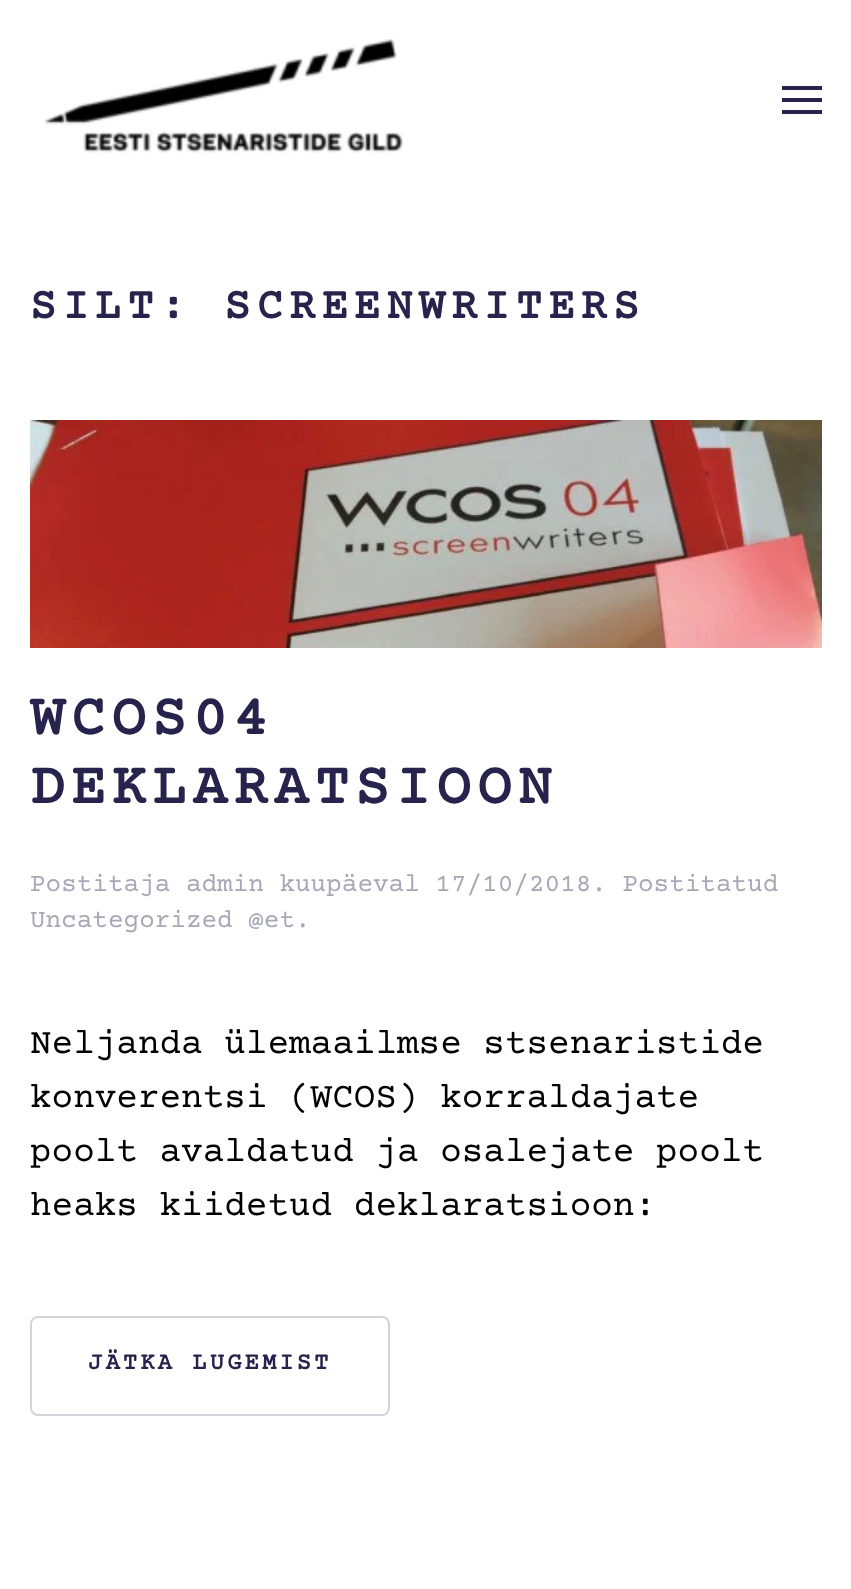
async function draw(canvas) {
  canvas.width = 851
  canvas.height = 1589
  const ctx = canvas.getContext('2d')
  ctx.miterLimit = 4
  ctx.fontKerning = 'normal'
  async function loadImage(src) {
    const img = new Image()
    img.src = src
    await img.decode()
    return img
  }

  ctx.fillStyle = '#fff'
  ctx.fillRect(0, 0, 851, 1589)
  ctx.drawImage(await loadImage('image0.png'), 44, 39, 359, 114)
  ctx.fillStyle = '#26244c'
  ctx.fillRect(782, 86, 40, 4)
  ctx.fillRect(782, 98, 40, 4)
  ctx.fillRect(782, 110, 40, 4)
  ctx.letterSpacing = '6px'
  ctx.font = 'bold 44px Courier Prime'
  ctx.fillText('SILT: SCREENWRITERS', 30, 318)
  ctx.drawImage(await loadImage('image1.png'), 30, 420, 792, 228)
  ctx.font = 'bold 57.75px Courier Prime'
  ctx.fillText('WCOS04', 30, 734)
  ctx.fillText('DEKLARATSIOON', 30, 803)
  ctx.letterSpacing = '0px'
  ctx.font = '26px Courier Prime'
  ctx.fillStyle = '#a8a7b7'
  ctx.fillText('Postitaja admin kuupäeval 17/10/2018. Postitatud', 30, 891)
  ctx.fillText('Uncategorized @et.', 30, 927)
  ctx.font = '36px Courier Prime'
  ctx.fillStyle = '#000'
  ctx.fillText('Neljanda ülemaailmse stsenaristide', 30, 1053)
  ctx.fillText('konverentsi (WCOS) korraldajate', 30, 1107)
  ctx.fillText('poolt avaldatud ja osalejate poolt', 30, 1161)
  ctx.fillText('heaks kiidetud deklaratsioon:', 30, 1215)
  ctx.beginPath()
  ctx.roundRect(31, 1317, 358, 98, 7)
  ctx.strokeStyle = '#d4d3db'
  ctx.lineWidth = 2
  ctx.stroke()
  ctx.letterSpacing = '3px'
  ctx.font = 'bold 24px Courier Prime'
  ctx.fillStyle = '#26244c'
  ctx.fillText('JÄTKA LUGEMIST', 88, 1369)
}

draw(document.querySelector('canvas'))
